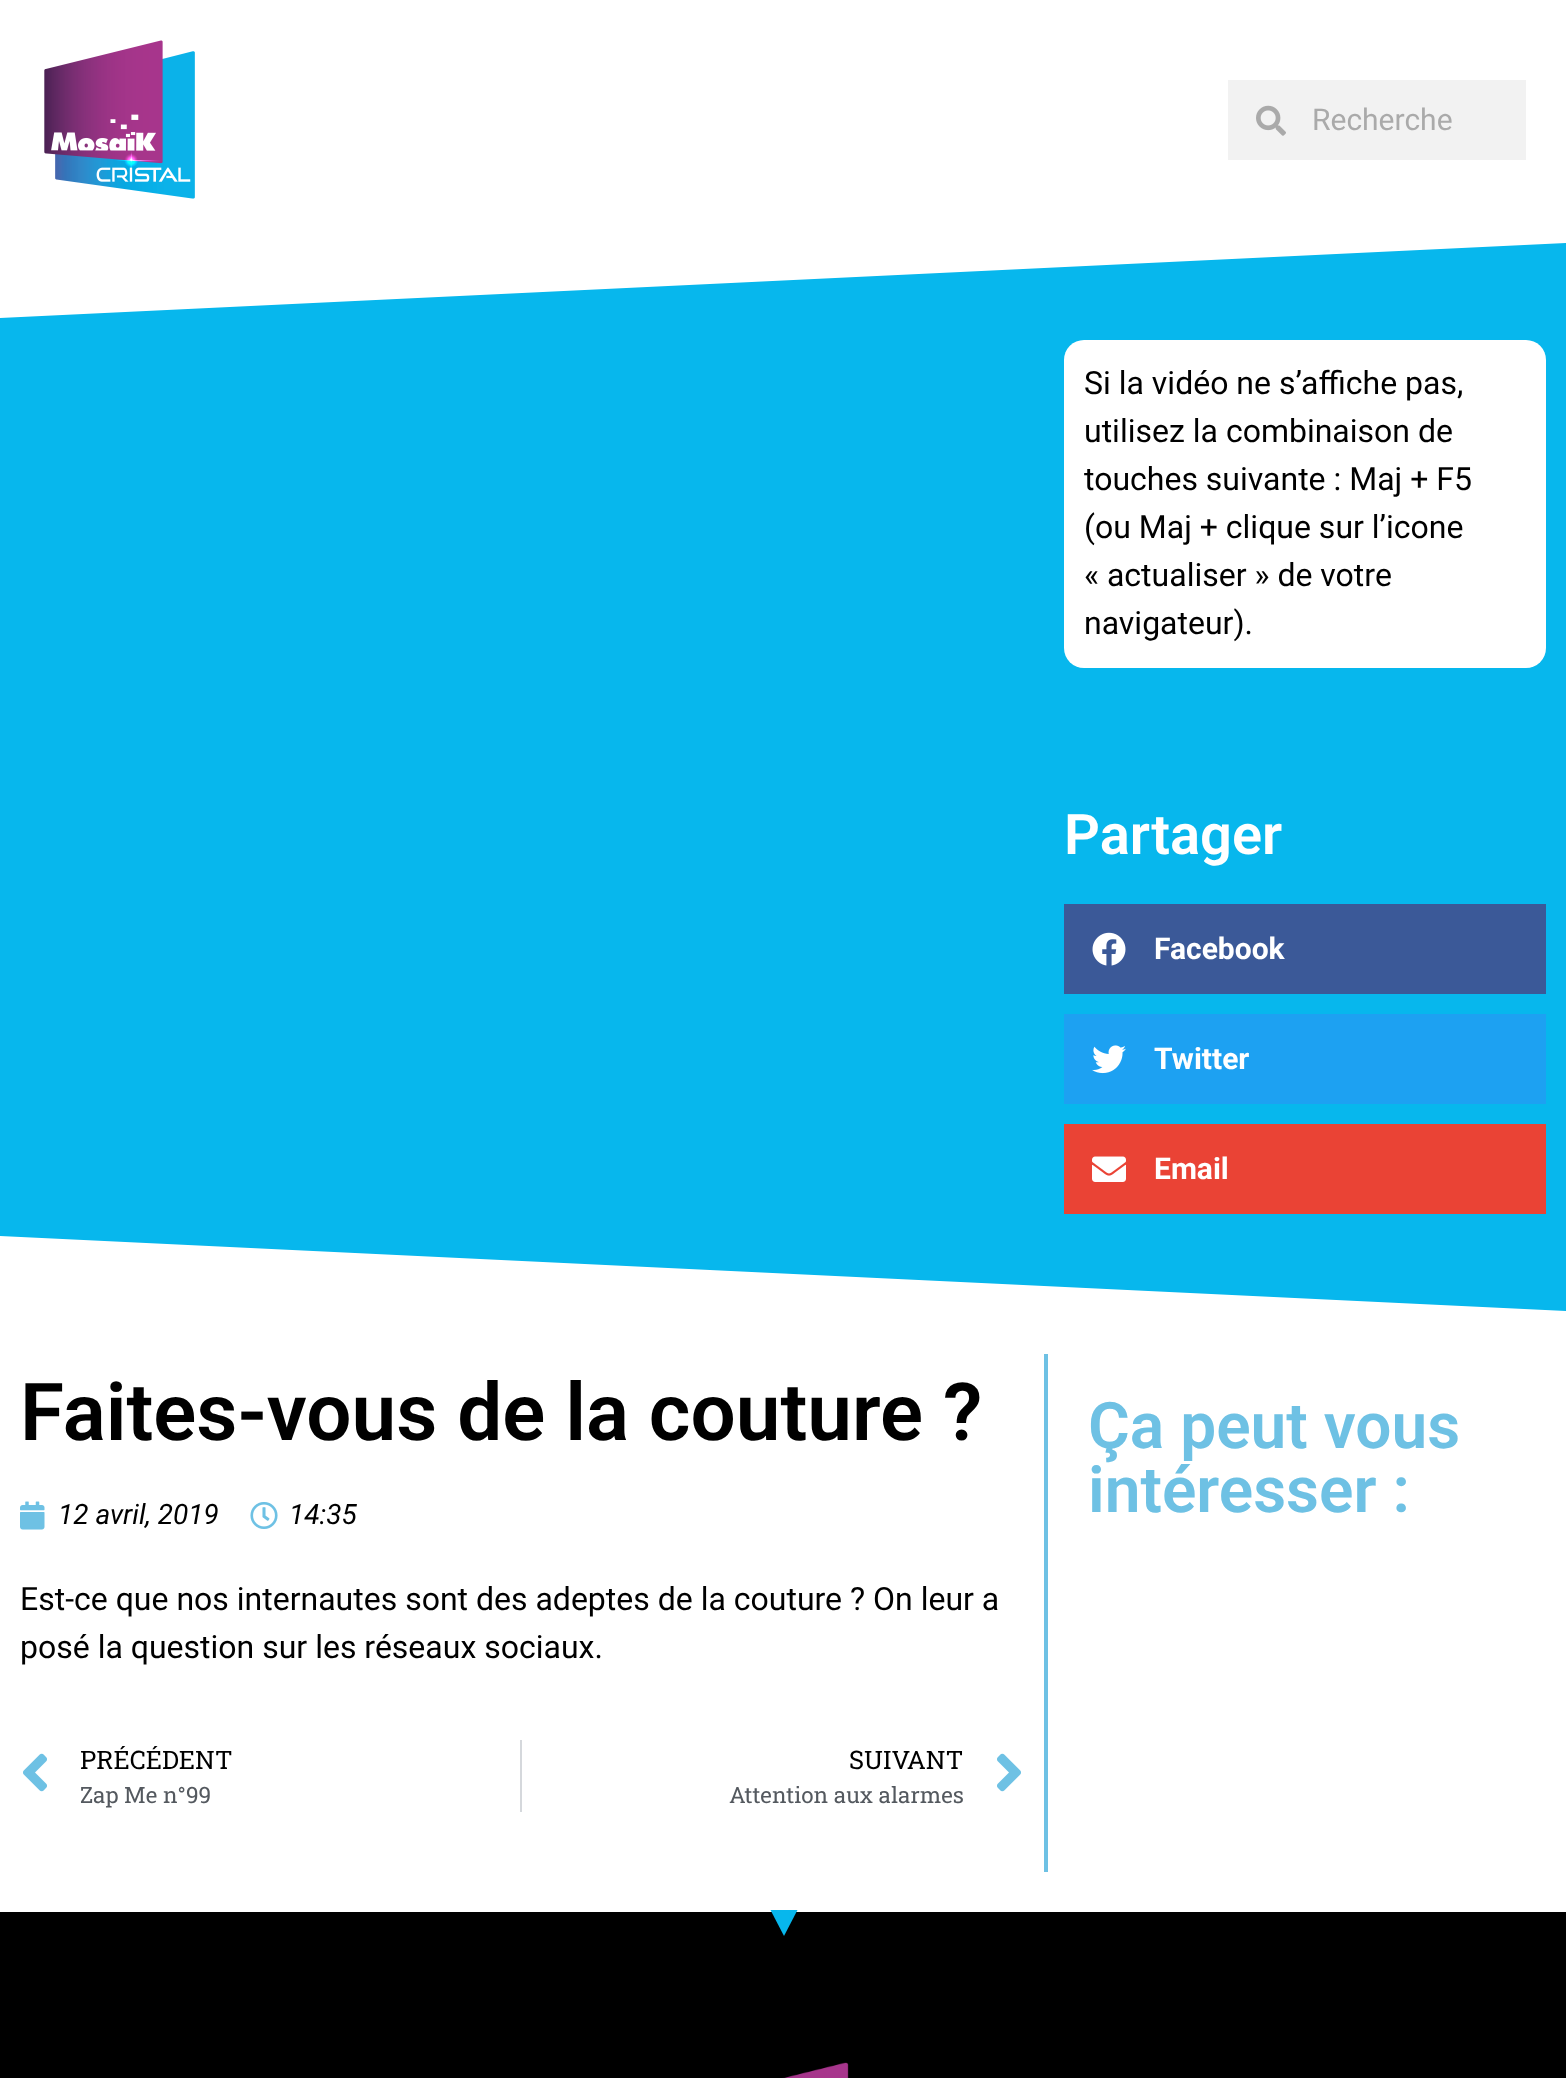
async function draw(canvas) {
  canvas.width = 1566
  canvas.height = 2078
  const ctx = canvas.getContext('2d')
  ctx.miterLimit = 4
  ctx.fontKerning = 'normal'
  async function loadImage(src) {
    const img = new Image()
    img.src = src
    await img.decode()
    return img
  }

  ctx.fillStyle = '#fff'
  ctx.fillRect(0, 0, 1566, 2078)
  ctx.drawImage(await loadImage('image0.png'), 44, 40, 151, 159)
  ctx.fillStyle = '#f2f2f2'
  ctx.fillRect(1228, 80, 298, 80)
  ctx.drawImage(await loadImage('image1.png'), 1256, 105, 30, 31)
  ctx.font = '30px Roboto'
  ctx.fillStyle = '#aaa'
  ctx.fillText('Recherche', 1312, 130)
  ctx.fillStyle = '#07b7ed'
  ctx.fillRect(0, 243, 1566, 1068)
  ctx.fillStyle = '#fff'
  ctx.beginPath()
  ctx.moveTo(1566, 243)
  ctx.lineTo(1566, 238)
  ctx.lineTo(-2, 238)
  ctx.lineTo(-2, 318)
  ctx.closePath()
  ctx.fill()
  ctx.beginPath()
  ctx.roundRect(1064, 340, 482, 328, 20)
  ctx.fill()
  ctx.font = '32px Roboto'
  ctx.fillStyle = '#000'
  ctx.fillText('Si la vidéo ne s’affiche pas,', 1084, 394)
  ctx.fillText('utilisez la combinaison de', 1084, 442)
  ctx.fillText('touches suivante : Maj + F5', 1084, 490)
  ctx.fillText('(ou Maj + clique sur l’icone', 1084, 538)
  ctx.fillText('« actualiser » de votre', 1084, 586)
  ctx.fillText('navigateur).', 1084, 634)
  ctx.font = '600 56px Roboto'
  ctx.fillStyle = '#fff'
  ctx.fillText('Partager', 1064, 854)
  ctx.fillStyle = '#3b5998'
  ctx.fillRect(1064, 904, 482, 90)
  ctx.drawImage(await loadImage('image2.png'), 1092, 932, 34, 34)
  ctx.font = 'bold 30px Roboto'
  ctx.fillStyle = '#fff'
  ctx.fillText('Facebook', 1154, 959)
  ctx.fillStyle = '#1da1f2'
  ctx.fillRect(1064, 1014, 482, 90)
  ctx.drawImage(await loadImage('image3.png'), 1092, 1045, 34, 29)
  ctx.fillStyle = '#fff'
  ctx.fillText('Twitter', 1154, 1069)
  ctx.fillStyle = '#ea4335'
  ctx.fillRect(1064, 1124, 482, 90)
  ctx.drawImage(await loadImage('image4.png'), 1092, 1156, 34, 26)
  ctx.fillStyle = '#fff'
  ctx.fillText('Email', 1154, 1179)
  ctx.beginPath()
  ctx.moveTo(1566, 1311)
  ctx.lineTo(1566, 1316)
  ctx.lineTo(-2, 1316)
  ctx.lineTo(-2, 1236)
  ctx.closePath()
  ctx.fill()
  ctx.font = '600 80px Roboto'
  ctx.fillStyle = '#000'
  ctx.fillText('Faites-vous de la couture ?', 20, 1440)
  ctx.drawImage(await loadImage('image5.png'), 20, 1501, 25, 29)
  ctx.font = 'italic 28px Roboto'
  ctx.fillText('12 avril, 2019', 58, 1524)
  ctx.drawImage(await loadImage('image6.png'), 250, 1502, 28, 27)
  ctx.fillText('14:35', 289, 1524)
  ctx.font = '32px Roboto'
  ctx.fillText('Est-ce que nos internautes sont des adeptes de la couture ? On leur a', 20, 1610)
  ctx.fillText('posé la question sur les réseaux sociaux.', 20, 1658)
  ctx.drawImage(await loadImage('image7.png'), 23, 1753, 24, 39)
  ctx.font = '25.5px Roboto Slab'
  ctx.fillText('PRÉCÉDENT', 80, 1769)
  ctx.font = '22.4px Roboto Slab'
  ctx.fillStyle = '#54595f'
  ctx.fillText('Zap Me n°99', 80, 1803)
  ctx.fillStyle = '#d5d8dc'
  ctx.fillRect(520, 1740, 2, 72)
  ctx.font = '25.5px Roboto Slab'
  ctx.fillStyle = '#000'
  ctx.fillText('SUIVANT', 849, 1769)
  ctx.font = '22.4px Roboto Slab'
  ctx.fillStyle = '#54595f'
  ctx.fillText('Attention aux alarmes', 729, 1803)
  ctx.drawImage(await loadImage('image8.png'), 997, 1753, 24, 39)
  ctx.fillStyle = '#6ec1e4'
  ctx.fillRect(1044, 1354, 4, 518)
  ctx.font = '600 64px Roboto'
  ctx.fillText('Ça peut vous', 1088, 1448)
  ctx.fillText('intéresser :', 1088, 1512)
  ctx.fillStyle = '#000'
  ctx.fillRect(0, 1912, 1566, 166)
  ctx.fillStyle = '#07b7ed'
  ctx.beginPath()
  ctx.moveTo(784, 1936)
  ctx.lineTo(770.5, 1910)
  ctx.lineTo(797.5, 1910)
  ctx.closePath()
  ctx.fill()
  ctx.drawImage(await loadImage('image9.png'), 782, 2062, 67, 16)
}

draw(document.querySelector('canvas'))
